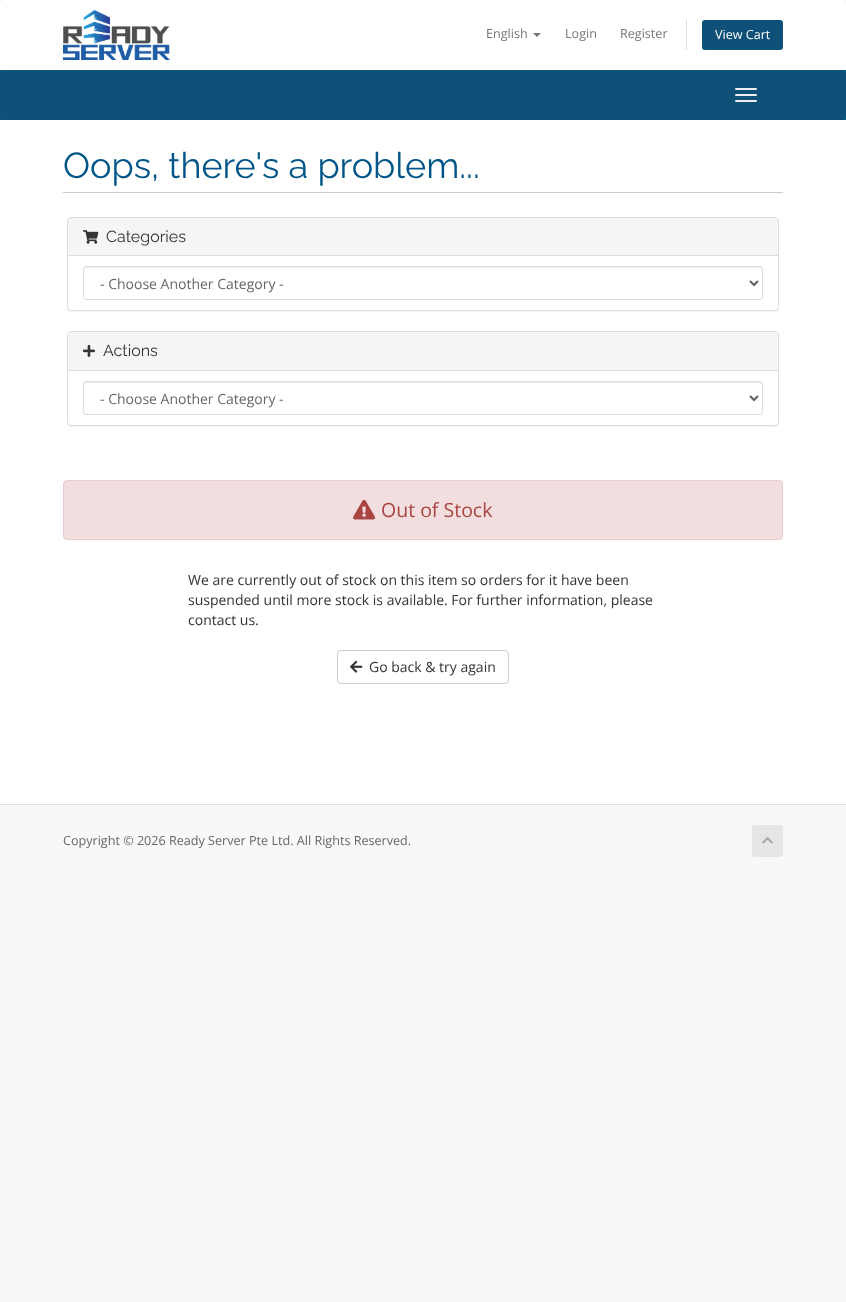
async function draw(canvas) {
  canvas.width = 846
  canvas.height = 1302
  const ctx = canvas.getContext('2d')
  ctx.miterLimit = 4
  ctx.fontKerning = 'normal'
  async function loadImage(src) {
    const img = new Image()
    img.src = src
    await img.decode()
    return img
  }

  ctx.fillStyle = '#f8f8f8'
  ctx.fillRect(0, 0, 846, 1302)
  ctx.fillStyle = '#fff'
  ctx.beginPath()
  ctx.roundRect(0, 0, 846, 70, [5, 5, 0, 0])
  ctx.fill()
  ctx.drawImage(await loadImage('image0.png'), 63, 10, 107, 50)
  ctx.font = '12.6px Open Sans'
  ctx.fillStyle = '#777'
  ctx.fillText('English', 486, 38)
  ctx.beginPath()
  ctx.moveTo(533, 33)
  ctx.lineTo(541, 33)
  ctx.lineTo(537, 37)
  ctx.closePath()
  ctx.fill()
  ctx.fillText('Login', 565, 38)
  ctx.fillText('Register', 620, 38)
  ctx.fillStyle = '#ddd'
  ctx.fillRect(686, 20, 1, 30)
  ctx.fillStyle = '#0e5077'
  ctx.beginPath()
  ctx.roundRect(702, 20, 81, 30, 3)
  ctx.fill()
  ctx.fillStyle = '#fff'
  ctx.fillText('View Cart', 715, 39)
  ctx.fillStyle = '#006687'
  ctx.fillRect(0, 70, 846, 50)
  ctx.fillStyle = '#0e5077'
  ctx.beginPath()
  ctx.roundRect(0, 70, 846, 50, 4)
  ctx.fill()
  ctx.fillStyle = '#eee'
  ctx.beginPath()
  ctx.roundRect(735, 88, 22, 2, 1)
  ctx.fill()
  ctx.beginPath()
  ctx.roundRect(735, 94, 22, 2, 1)
  ctx.fill()
  ctx.beginPath()
  ctx.roundRect(735, 100, 22, 2, 1)
  ctx.fill()
  ctx.fillStyle = '#fff'
  ctx.fillRect(0, 120, 846, 684)
  ctx.fillStyle = '#ccc'
  ctx.fillRect(63, 192, 720, 1)
  ctx.font = '36px Raleway'
  ctx.fillStyle = '#058'
  ctx.fillText('Oops, there\'s a problem...', 63, 178)
  ctx.fillStyle = '#0000000d'
  ctx.filter = 'blur(0.5px)'
  ctx.beginPath()
  ctx.roundRect(67, 218, 712, 94, 4)
  ctx.fill()
  ctx.filter = 'none'
  ctx.fillStyle = '#fff'
  ctx.beginPath()
  ctx.roundRect(67.5, 217.5, 711, 93, 3.5)
  ctx.fill()
  ctx.strokeStyle = '#ddd'
  ctx.stroke()
  ctx.fillStyle = '#f5f5f5'
  ctx.beginPath()
  ctx.roundRect(68, 218, 710, 38, [3, 3, 0, 0])
  ctx.fill()
  ctx.fillStyle = '#ddd'
  ctx.fillRect(68, 255, 710, 1)
  ctx.drawImage(await loadImage('image1.png'), 83, 230, 16, 14)
  ctx.font = '16px Raleway'
  ctx.fillStyle = '#333'
  ctx.fillText('Categories', 106, 242)
  ctx.fillStyle = '#ececec'
  ctx.beginPath()
  ctx.moveTo(86, 268)
  ctx.lineTo(760, 268)
  ctx.bezierCurveTo(761, 268, 762, 269, 762, 270)
  ctx.bezierCurveTo(762, 269, 762, 267, 760, 267)
  ctx.lineTo(86, 267)
  ctx.bezierCurveTo(84, 267, 84, 269, 84, 270)
  ctx.bezierCurveTo(84, 269, 85, 268, 86, 268)
  ctx.closePath()
  ctx.fill()
  ctx.beginPath()
  ctx.roundRect(83.5, 266.5, 679, 33, 2.5)
  ctx.stroke()
  ctx.beginPath()
  ctx.moveTo(750, 281)
  ctx.lineTo(754, 285)
  ctx.lineTo(758, 281)
  ctx.strokeStyle = '#626262'
  ctx.lineWidth = 2
  ctx.stroke()
  ctx.font = '14px Open Sans'
  ctx.fillStyle = '#666'
  ctx.fillText('- Choose Another Category -', 100, 289)
  ctx.fillStyle = '#0000000d'
  ctx.filter = 'blur(0.5px)'
  ctx.beginPath()
  ctx.roundRect(67, 332, 712, 95, 4)
  ctx.fill()
  ctx.filter = 'none'
  ctx.fillStyle = '#fff'
  ctx.beginPath()
  ctx.roundRect(67.5, 331.5, 711, 94, 3.5)
  ctx.fill()
  ctx.strokeStyle = '#ddd'
  ctx.lineWidth = 1
  ctx.stroke()
  ctx.fillStyle = '#f5f5f5'
  ctx.beginPath()
  ctx.roundRect(68, 332, 710, 39, [3, 3, 0, 0])
  ctx.fill()
  ctx.fillStyle = '#ddd'
  ctx.fillRect(68, 370, 710, 1)
  ctx.drawImage(await loadImage('image2.png'), 83, 344, 12, 13)
  ctx.font = '16px Raleway'
  ctx.fillStyle = '#333'
  ctx.fillText('Actions', 103, 356)
  ctx.fillStyle = '#ececec'
  ctx.beginPath()
  ctx.moveTo(86, 383)
  ctx.lineTo(760, 383)
  ctx.bezierCurveTo(761, 383, 762, 384, 762, 385)
  ctx.bezierCurveTo(762, 384, 762, 382, 760, 382)
  ctx.lineTo(86, 382)
  ctx.bezierCurveTo(84, 382, 84, 384, 84, 385)
  ctx.bezierCurveTo(84, 384, 85, 383, 86, 383)
  ctx.closePath()
  ctx.fill()
  ctx.beginPath()
  ctx.roundRect(83.5, 381.5, 679, 33, 2.5)
  ctx.stroke()
  ctx.beginPath()
  ctx.moveTo(750, 396)
  ctx.lineTo(754, 400)
  ctx.lineTo(758, 396)
  ctx.strokeStyle = '#626262'
  ctx.lineWidth = 2
  ctx.stroke()
  ctx.font = '14px Open Sans'
  ctx.fillStyle = '#666'
  ctx.fillText('- Choose Another Category -', 100, 404)
  ctx.fillStyle = '#f2dede'
  ctx.beginPath()
  ctx.roundRect(63.5, 480.5, 719, 59, 3.5)
  ctx.fill()
  ctx.strokeStyle = '#ebccd1'
  ctx.lineWidth = 1
  ctx.stroke()
  ctx.drawImage(await loadImage('image3.png'), 353, 499, 23, 21)
  ctx.font = '19.5px Open Sans'
  ctx.fillStyle = '#a94442'
  ctx.fillText('Out of Stock', 381, 517)
  ctx.font = '14px Open Sans'
  ctx.fillStyle = '#333'
  ctx.fillText('We are currently out of stock on this item so orders for it have been', 188, 585)
  ctx.fillText('suspended until more stock is available. For further information, please', 188, 605)
  ctx.fillText('contact us.', 188, 625)
  ctx.beginPath()
  ctx.roundRect(337.5, 650.5, 171, 33, 3.5)
  ctx.strokeStyle = '#ccc'
  ctx.stroke()
  ctx.drawImage(await loadImage('image4.png'), 350, 660, 13, 13)
  ctx.fillText('Go back & try again', 369, 672)
  ctx.fillStyle = '#ddd'
  ctx.fillRect(0, 804, 846, 1)
  ctx.font = '12.6px Open Sans'
  ctx.fillStyle = '#666'
  ctx.fillText('Copyright © 2026 Ready Server Pte Ltd. All Rights Reserved.', 63, 845)
  ctx.fillStyle = '#e5e5e5'
  ctx.beginPath()
  ctx.roundRect(752, 825, 31, 32, 3)
  ctx.fill()
  ctx.drawImage(await loadImage('image5.png'), 762, 837, 11, 7)
}

draw(document.querySelector('canvas'))
